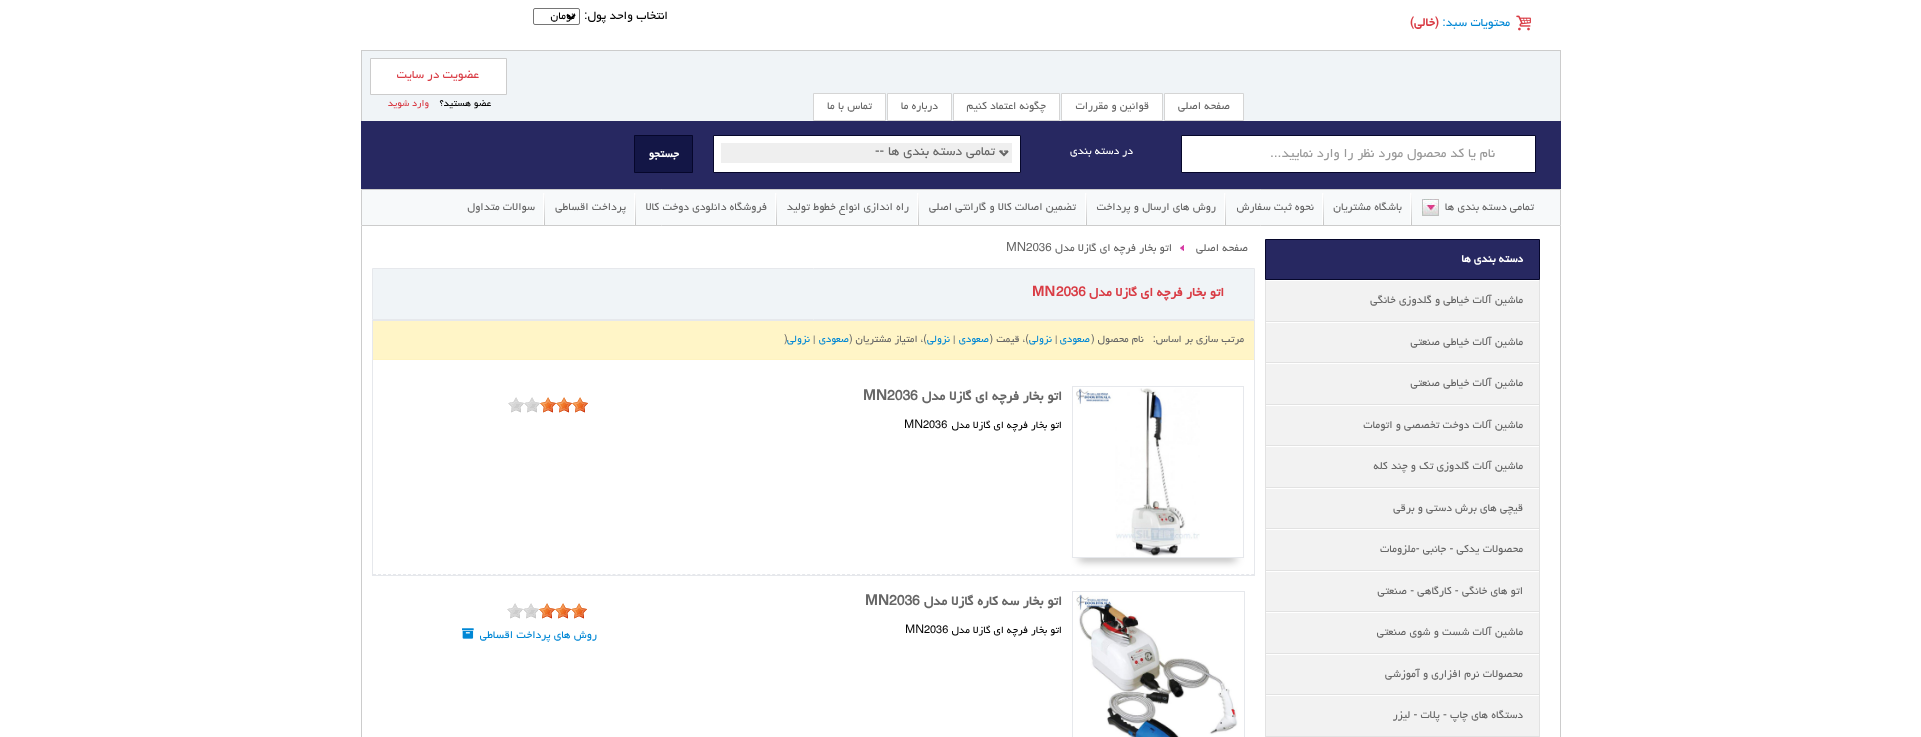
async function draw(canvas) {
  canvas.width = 1921
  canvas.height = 737
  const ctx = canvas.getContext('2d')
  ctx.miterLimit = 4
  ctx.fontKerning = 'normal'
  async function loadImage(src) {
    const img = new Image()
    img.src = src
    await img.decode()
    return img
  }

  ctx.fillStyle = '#fff'
  ctx.fillRect(0, 0, 1921, 737)
  ctx.drawImage(await loadImage('image0.png'), 1516, 15, 15, 16)
  ctx.direction = 'rtl'
  ctx.font = '14.25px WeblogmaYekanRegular'
  ctx.fillStyle = '#0087d5'
  ctx.fillText('محتویات سبد:', 1510, 26)
  ctx.font = 'bold 14.25px WeblogmaYekanRegular'
  ctx.fillStyle = '#d93c45'
  ctx.fillText('(خالی)', 1439, 26)
  ctx.font = '14.25px WeblogmaYekanRegular'
  ctx.fillStyle = '#000'
  ctx.fillText('انتخاب واحد پول:', 668, 19)
  ctx.beginPath()
  ctx.roundRect(533.5, 8.5, 46, 16, 1.5)
  ctx.strokeStyle = '#767676'
  ctx.stroke()
  ctx.beginPath()
  ctx.moveTo(567, 14.5)
  ctx.lineTo(571, 18.5)
  ctx.lineTo(575, 14.5)
  ctx.strokeStyle = '#000'
  ctx.lineWidth = 2
  ctx.stroke()
  ctx.font = '13px WeblogmaYekanRegular'
  ctx.fillText('تومان', 575, 19)
  ctx.fillStyle = '#f0f4f7'
  ctx.fillRect(362, 51, 1198, 70)
  ctx.fillStyle = '#ccc'
  ctx.fillRect(361, 50, 1200, 1)
  ctx.fillRect(1560, 50, 1, 71)
  ctx.fillRect(361, 50, 1, 71)
  ctx.fillStyle = '#fff'
  ctx.beginPath()
  ctx.rect(1164.5, 93.5, 79, 27)
  ctx.fill()
  ctx.strokeStyle = '#d5d5d5'
  ctx.lineWidth = 1
  ctx.stroke()
  ctx.fillStyle = '#666'
  ctx.fillText('صفحه اصلی', 1230, 109)
  ctx.fillStyle = '#fff'
  ctx.beginPath()
  ctx.rect(1061.5, 93.5, 101, 27)
  ctx.fill()
  ctx.stroke()
  ctx.fillStyle = '#666'
  ctx.fillText('قوانین و مقررات', 1149, 109)
  ctx.fillStyle = '#fff'
  ctx.beginPath()
  ctx.rect(953.5, 93.5, 106, 27)
  ctx.fill()
  ctx.stroke()
  ctx.fillStyle = '#666'
  ctx.fillText('چگونه اعتماد کنیم', 1046, 109)
  ctx.fillStyle = '#fff'
  ctx.beginPath()
  ctx.rect(887.5, 93.5, 64, 27)
  ctx.fill()
  ctx.stroke()
  ctx.fillStyle = '#666'
  ctx.fillText('درباره ما', 938, 109)
  ctx.fillStyle = '#fff'
  ctx.beginPath()
  ctx.rect(813.5, 93.5, 72, 27)
  ctx.fill()
  ctx.stroke()
  ctx.fillStyle = '#666'
  ctx.fillText('تماس با ما', 872, 109)
  ctx.fillStyle = '#fff'
  ctx.beginPath()
  ctx.rect(370.5, 58.5, 136, 36)
  ctx.fill()
  ctx.strokeStyle = '#ccc'
  ctx.stroke()
  ctx.font = '14.25px WeblogmaYekanRegular'
  ctx.fillStyle = '#d93c45'
  ctx.fillText('عضویت در سایت', 479, 78)
  ctx.font = '11.5px WeblogmaYekanRegular'
  ctx.fillStyle = '#000'
  ctx.fillText('عضو هستید؟', 491, 106)
  ctx.fillStyle = '#d93c45'
  ctx.fillText('وارد شوید', 429, 106)
  ctx.fillStyle = '#272861'
  ctx.fillRect(361, 121, 1200, 68)
  ctx.fillStyle = '#fff'
  ctx.beginPath()
  ctx.rect(1181.5, 135.5, 354, 37)
  ctx.fill()
  ctx.strokeStyle = '#06072b'
  ctx.stroke()
  ctx.font = '15.6px WeblogmaYekanRegular'
  ctx.fillStyle = '#999'
  ctx.fillText('نام یا کد محصول مورد نظر را وارد نمایید...', 1495, 157)
  ctx.font = '13px WeblogmaYekanRegular'
  ctx.fillStyle = '#fff'
  ctx.fillText('در دسته بندی', 1133, 154)
  ctx.beginPath()
  ctx.rect(713.5, 135.5, 307, 37)
  ctx.fill()
  ctx.stroke()
  ctx.fillStyle = '#efefef'
  ctx.fillRect(721, 143, 291, 20)
  ctx.beginPath()
  ctx.moveTo(1000, 151)
  ctx.lineTo(1004, 155)
  ctx.lineTo(1008, 151)
  ctx.strokeStyle = '#666'
  ctx.lineWidth = 2
  ctx.stroke()
  ctx.font = '15.6px WeblogmaYekanRegular'
  ctx.fillStyle = '#666'
  ctx.fillText('-- تمامی دسته بندی ها --', 1008, 155)
  ctx.fillStyle = '#131646'
  ctx.beginPath()
  ctx.rect(634.5, 135.5, 58, 37)
  ctx.fill()
  ctx.strokeStyle = '#06072b'
  ctx.lineWidth = 1
  ctx.stroke()
  ctx.font = 'bold 13px WeblogmaYekanRegular'
  ctx.fillStyle = '#fff'
  ctx.fillText('جستجو', 679, 157)
  ctx.fillStyle = '#f7f9fa'
  ctx.beginPath()
  ctx.rect(361.5, 189.5, 1199, 36)
  ctx.fill()
  ctx.strokeStyle = '#ccc'
  ctx.stroke()
  ctx.drawImage(await loadImage('image1.png'), 1422, 199, 17, 17)
  ctx.font = '13px WeblogmaYekanRegular'
  ctx.fillStyle = '#666'
  ctx.fillText('تمامی دسته بندی ها', 1534, 210)
  ctx.drawImage(await loadImage('image2.png'), 1410, 193, 2, 32)
  ctx.fillText('باشگاه مشتریان', 1402, 210)
  ctx.drawImage(await loadImage('image2.png'), 1322, 193, 2, 32)
  ctx.fillText('نحوه ثبت سفارش', 1314, 210)
  ctx.drawImage(await loadImage('image2.png'), 1224, 193, 2, 32)
  ctx.fillText('روش های ارسال و پرداخت', 1216, 210)
  ctx.drawImage(await loadImage('image2.png'), 1085, 193, 2, 32)
  ctx.fillText('تضمین اصالت کالا و گارانتی اصلی', 1076, 210)
  ctx.drawImage(await loadImage('image2.png'), 917, 193, 2, 32)
  ctx.fillText('راه اندازی انواع خطوط تولید', 909, 210)
  ctx.drawImage(await loadImage('image2.png'), 775, 193, 2, 32)
  ctx.fillText('فروشگاه دانلودی دوخت کالا', 767, 210)
  ctx.drawImage(await loadImage('image2.png'), 634, 193, 2, 32)
  ctx.fillText('پرداخت اقساطی', 626, 210)
  ctx.drawImage(await loadImage('image2.png'), 543, 193, 2, 32)
  ctx.fillText('سوالات متداول', 535, 210)
  ctx.fillStyle = '#ccc'
  ctx.fillRect(1560, 226, 1, 511)
  ctx.fillRect(361, 226, 1, 511)
  ctx.fillStyle = '#272861'
  ctx.beginPath()
  ctx.rect(1265.5, 239.5, 274, 40)
  ctx.fill()
  ctx.strokeStyle = '#06072b'
  ctx.stroke()
  ctx.font = 'bold 13px WeblogmaYekanRegular'
  ctx.fillStyle = '#fff'
  ctx.fillText('دسته بندی ها', 1523, 262)
  ctx.fillStyle = '#e2e2e2'
  ctx.fillRect(1539, 280, 1, 457)
  ctx.fillRect(1265, 280, 1, 457)
  ctx.fillStyle = '#f2f2f2'
  ctx.fillRect(1266, 281, 273, 40)
  ctx.fillStyle = '#e2e2e2'
  ctx.fillRect(1266, 321, 273, 1)
  ctx.font = '13px WeblogmaYekanRegular'
  ctx.fillStyle = '#666'
  ctx.fillText('ماشین آلات خیاطی و گلدوزی خانگی', 1523, 303)
  ctx.fillStyle = '#f2f2f2'
  ctx.fillRect(1266, 323, 273, 39)
  ctx.fillStyle = '#e2e2e2'
  ctx.fillRect(1266, 362, 273, 1)
  ctx.fillStyle = '#666'
  ctx.fillText('ماشین آلات خیاطی صنعتی', 1523, 345)
  ctx.fillStyle = '#f2f2f2'
  ctx.fillRect(1266, 364, 273, 40)
  ctx.fillStyle = '#e2e2e2'
  ctx.fillRect(1266, 404, 273, 1)
  ctx.fillStyle = '#666'
  ctx.fillText('ماشین آلات خیاطی صنعتی', 1523, 386)
  ctx.fillStyle = '#f2f2f2'
  ctx.fillRect(1266, 406, 273, 39)
  ctx.fillStyle = '#e2e2e2'
  ctx.fillRect(1266, 445, 273, 1)
  ctx.fillStyle = '#666'
  ctx.fillText('ماشین آلات دوخت تخصصی و اتومات', 1523, 428)
  ctx.fillStyle = '#f2f2f2'
  ctx.fillRect(1266, 447, 273, 40)
  ctx.fillStyle = '#e2e2e2'
  ctx.fillRect(1266, 487, 273, 1)
  ctx.fillStyle = '#666'
  ctx.fillText('ماشین آلات گلدوزی تک و چند کله', 1523, 469)
  ctx.fillStyle = '#f2f2f2'
  ctx.fillRect(1266, 489, 273, 39)
  ctx.fillStyle = '#e2e2e2'
  ctx.fillRect(1266, 528, 273, 1)
  ctx.fillStyle = '#666'
  ctx.fillText('قیچی های برش دستی و برقی', 1523, 511)
  ctx.fillStyle = '#f2f2f2'
  ctx.fillRect(1266, 530, 273, 40)
  ctx.fillStyle = '#e2e2e2'
  ctx.fillRect(1266, 570, 273, 1)
  ctx.fillStyle = '#666'
  ctx.fillText('محصولات یدکی - جانبی -ملزومات', 1523, 552)
  ctx.fillStyle = '#f2f2f2'
  ctx.fillRect(1266, 572, 273, 39)
  ctx.fillStyle = '#e2e2e2'
  ctx.fillRect(1266, 611, 273, 1)
  ctx.fillStyle = '#666'
  ctx.fillText('اتو های خانگی - کارگاهی - صنعتی', 1523, 594)
  ctx.fillStyle = '#f2f2f2'
  ctx.fillRect(1266, 613, 273, 40)
  ctx.fillStyle = '#e2e2e2'
  ctx.fillRect(1266, 653, 273, 1)
  ctx.fillStyle = '#666'
  ctx.fillText('ماشین آلات شست و شوی صنعتی', 1523, 635)
  ctx.fillStyle = '#f2f2f2'
  ctx.fillRect(1266, 655, 273, 39)
  ctx.fillStyle = '#e2e2e2'
  ctx.fillRect(1266, 694, 273, 1)
  ctx.fillStyle = '#666'
  ctx.fillText('محصولات نرم افزاری و آموزشی', 1523, 677)
  ctx.fillStyle = '#f2f2f2'
  ctx.fillRect(1266, 696, 273, 40)
  ctx.fillStyle = '#e2e2e2'
  ctx.fillRect(1266, 736, 273, 1)
  ctx.fillStyle = '#666'
  ctx.fillText('دستگاه های چاپ - پلات - لیزر', 1523, 718)
  ctx.fillText('صفحه اصلی', 1248, 251)
  ctx.drawImage(await loadImage('image3.png'), 1180, 245, 4, 6)
  ctx.fillText('اتو بخار فرچه ای گازلا مدل', 1172, 251)
  ctx.direction = 'ltr'
  ctx.fillText('2036', 1026, 251)
  ctx.font = '13px Liberation Sans'
  ctx.fillText('MN', 1006, 251)
  ctx.fillStyle = '#f0f4f7'
  ctx.beginPath()
  ctx.rect(372.5, 268.5, 882, 51)
  ctx.fill()
  ctx.strokeStyle = '#e6e8ec'
  ctx.stroke()
  ctx.direction = 'rtl'
  ctx.font = 'bold 15px WeblogmaYekanRegular'
  ctx.fillStyle = '#d93c45'
  ctx.fillText('اتو بخار فرچه ای گازلا مدل', 1224, 296)
  ctx.direction = 'ltr'
  ctx.fillText('2036', 1056, 296)
  ctx.font = 'bold 15px Liberation Sans'
  ctx.fillText('MN', 1032, 296)
  ctx.strokeRect(372.5, 320.5, 882, 255)
  ctx.fillStyle = '#fff5c7'
  ctx.fillRect(373, 321, 881, 38)
  ctx.fillStyle = '#fef3c0'
  ctx.fillRect(373, 359, 881, 1)
  ctx.direction = 'rtl'
  ctx.font = '12.3px WeblogmaYekanRegular'
  ctx.fillStyle = '#666'
  ctx.fillText('مرتب سازی بر اساس:   نام محصول (', 1244, 342)
  ctx.fillStyle = '#0087d5'
  ctx.fillText('صعودی', 1090, 342)
  ctx.direction = 'ltr'
  ctx.font = '9px Liberation Sans'
  ctx.fillStyle = '#666'
  ctx.fillText('|', 1055, 342)
  ctx.direction = 'rtl'
  ctx.font = '12.3px WeblogmaYekanRegular'
  ctx.fillStyle = '#0087d5'
  ctx.fillText('نزولی', 1052, 342)
  ctx.fillStyle = '#666'
  ctx.fillText(')، قیمت (', 1029, 342)
  ctx.fillStyle = '#0087d5'
  ctx.fillText('صعودی', 989, 342)
  ctx.direction = 'ltr'
  ctx.font = '9px Liberation Sans'
  ctx.fillStyle = '#666'
  ctx.fillText('|', 953, 342)
  ctx.direction = 'rtl'
  ctx.font = '12.3px WeblogmaYekanRegular'
  ctx.fillStyle = '#0087d5'
  ctx.fillText('نزولی', 950, 342)
  ctx.fillStyle = '#666'
  ctx.fillText(')، امتیاز مشتریان (', 927, 342)
  ctx.fillStyle = '#0087d5'
  ctx.fillText('صعودی', 849, 342)
  ctx.direction = 'ltr'
  ctx.font = '9px Liberation Sans'
  ctx.fillStyle = '#666'
  ctx.fillText('|', 813, 342)
  ctx.direction = 'rtl'
  ctx.font = '12.3px WeblogmaYekanRegular'
  ctx.fillStyle = '#0087d5'
  ctx.fillText('نزولی', 810, 342)
  ctx.direction = 'ltr'
  ctx.fillStyle = '#666'
  ctx.fillText(')', 784, 342)
  ctx.beginPath()
  ctx.moveTo(373, 574.5)
  ctx.lineTo(1254, 574.5)
  ctx.setLineDash([3, 1.99])
  ctx.stroke()
  ctx.fillStyle = '#000'
  ctx.filter = 'blur(4.5px)'
  ctx.beginPath()
  ctx.rect(1079, 557, 157, 2)
  ctx.fill()
  ctx.filter = 'none'
  ctx.fillStyle = '#fff'
  ctx.fillRect(1073, 547, 170, 10)
  ctx.setLineDash([])
  ctx.strokeRect(1072.5, 386.5, 171, 171)
  ctx.drawImage(await loadImage('image4.png'), 1076, 388, 124, 169)
  ctx.direction = 'rtl'
  ctx.font = 'bold 15.6px WeblogmaYekanRegular'
  ctx.fillStyle = '#666'
  ctx.fillText('اتو بخار فرچه ای گازلا مدل', 1062, 400)
  ctx.direction = 'ltr'
  ctx.fillText('2036', 887, 400)
  ctx.font = 'bold 15.6px Liberation Sans'
  ctx.fillText('MN', 863, 400)
  ctx.direction = 'rtl'
  ctx.font = '12.3px WeblogmaYekanRegular'
  ctx.fillStyle = '#000'
  ctx.fillText('اتو بخار فرچه ای گازلا مدل', 1062, 428)
  ctx.direction = 'ltr'
  ctx.fillText('2036', 923, 428)
  ctx.font = '12.3px Liberation Sans'
  ctx.fillText('MN', 904, 428)
  ctx.drawImage(await loadImage('image5.png'), 508, 397, 32, 16)
  ctx.drawImage(await loadImage('image6.png'), 540, 397, 48, 16)
  ctx.strokeRect(1072.5, 591.5, 172, 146)
  ctx.drawImage(await loadImage('image7.png'), 1076, 592, 162, 145)
  ctx.direction = 'rtl'
  ctx.font = 'bold 15.6px WeblogmaYekanRegular'
  ctx.fillStyle = '#666'
  ctx.fillText('اتو بخار سه کاره گازلا مدل', 1062, 605)
  ctx.direction = 'ltr'
  ctx.fillText('2036', 889, 605)
  ctx.font = 'bold 15.6px Liberation Sans'
  ctx.fillText('MN', 865, 605)
  ctx.direction = 'rtl'
  ctx.font = '12.3px WeblogmaYekanRegular'
  ctx.fillStyle = '#000'
  ctx.fillText('اتو بخار فرچه ای گازلا مدل', 1062, 633)
  ctx.direction = 'ltr'
  ctx.fillText('2036', 924, 633)
  ctx.font = '12.3px Liberation Sans'
  ctx.fillText('MN', 905, 633)
  ctx.drawImage(await loadImage('image5.png'), 507, 603, 32, 16)
  ctx.drawImage(await loadImage('image6.png'), 539, 603, 48, 16)
  ctx.direction = 'rtl'
  ctx.font = '13px WeblogmaYekanRegular'
  ctx.fillStyle = '#0087d5'
  ctx.fillText('روش های پرداخت اقساطی', 597, 638)
  ctx.drawImage(await loadImage('image8.png'), 462, 628, 12, 11)
}

draw(document.querySelector('canvas'))
